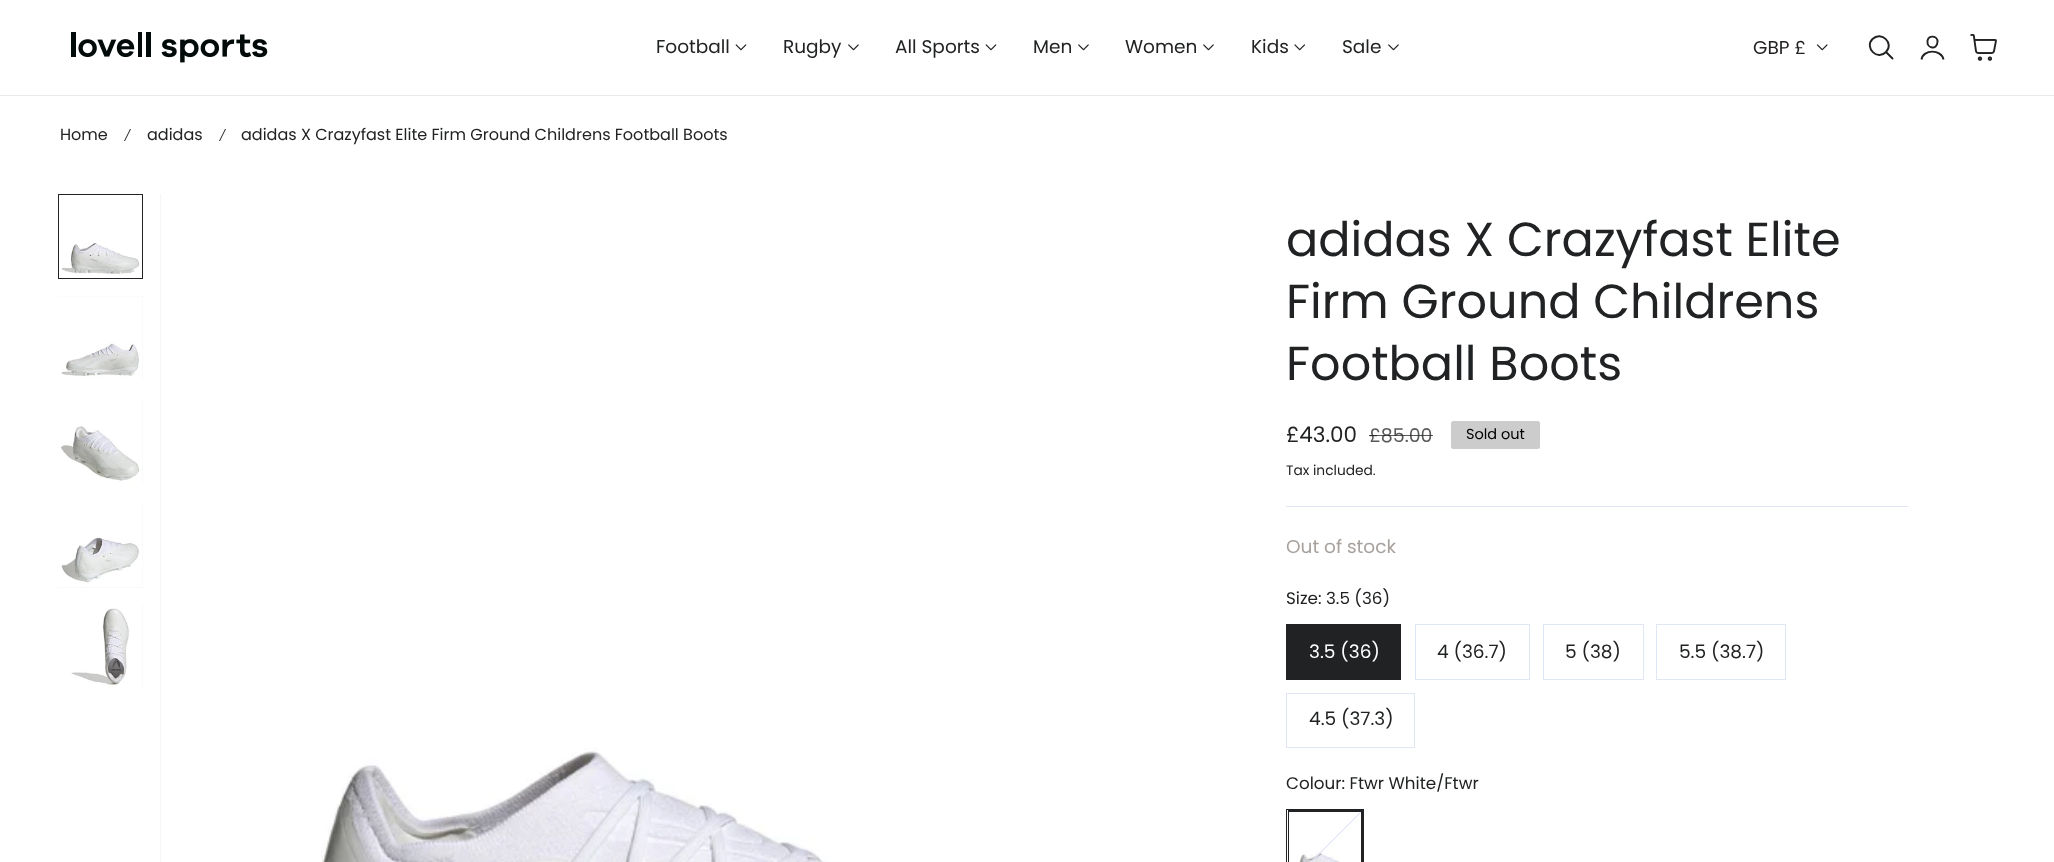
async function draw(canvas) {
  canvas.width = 2054
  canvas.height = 862
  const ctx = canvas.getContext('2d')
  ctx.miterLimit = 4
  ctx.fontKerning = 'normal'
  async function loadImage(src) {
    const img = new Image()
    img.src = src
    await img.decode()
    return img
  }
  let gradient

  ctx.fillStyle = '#fff'
  ctx.fillRect(0, 0, 2054, 862)
  ctx.fillStyle = '#e9e9e9'
  ctx.fillRect(0, 95, 2054, 1)
  ctx.drawImage(await loadImage('image0.png'), 71, 32, 197, 31)
  ctx.font = '18.5px Poppins'
  ctx.fillStyle = '#202223'
  ctx.fillText('Football', 656, 53)
  ctx.drawImage(await loadImage('image1.png'), 735, 44, 12, 7)
  ctx.fillText('Rugby', 783, 53)
  ctx.drawImage(await loadImage('image2.png'), 848, 44, 11, 7)
  ctx.fillText('All Sports', 895, 53)
  ctx.drawImage(await loadImage('image1.png'), 985, 44, 12, 7)
  ctx.fillText('Men', 1033, 53)
  ctx.drawImage(await loadImage('image2.png'), 1078, 44, 11, 7)
  ctx.fillText('Women', 1125, 53)
  ctx.drawImage(await loadImage('image2.png'), 1203, 44, 11, 7)
  ctx.fillText('Kids', 1251, 53)
  ctx.drawImage(await loadImage('image3.png'), 1294, 44, 11, 7)
  ctx.fillText('Sale', 1342, 53)
  ctx.drawImage(await loadImage('image2.png'), 1388, 44, 11, 7)
  ctx.fillText('GBP £', 1753, 54)
  ctx.drawImage(await loadImage('image4.png'), 1816, 44, 12, 7)
  ctx.beginPath()
  ctx.moveTo(1892.5, 58.5)
  ctx.lineTo(1886, 52)
  ctx.moveTo(1886, 52)
  ctx.bezierCurveTo(1894.5, 43.5, 1881.5, 30.5, 1872.5, 39)
  ctx.bezierCurveTo(1864, 47.5, 1877.5, 61, 1886, 52)
  ctx.closePath()
  ctx.strokeStyle = '#202223'
  ctx.lineWidth = 1.9
  ctx.lineCap = 'round'
  ctx.lineJoin = 'round'
  ctx.stroke()
  ctx.beginPath()
  ctx.moveTo(1937.5, 42)
  ctx.bezierCurveTo(1937, 50.5, 1926.5, 48.5, 1927.5, 41)
  ctx.bezierCurveTo(1928, 34.5, 1938, 35.5, 1937.5, 42)
  ctx.closePath()
  ctx.stroke()
  ctx.beginPath()
  ctx.moveTo(1921.5, 59.5)
  ctx.bezierCurveTo(1923, 49, 1941.5, 49, 1943.5, 59.5)
  ctx.lineCap = 'butt'
  ctx.lineJoin = 'miter'
  ctx.stroke()
  ctx.drawImage(await loadImage('image5.png'), 1970, 34, 27, 27)
  ctx.font = '16.05px Poppins'
  ctx.fillText('Home', 60, 140)
  ctx.beginPath()
  ctx.moveTo(124, 141)
  ctx.lineTo(130, 129)
  ctx.lineTo(131, 129)
  ctx.lineTo(125, 141)
  ctx.closePath()
  ctx.fill()
  ctx.fillText('adidas', 147, 140)
  ctx.beginPath()
  ctx.moveTo(219, 141)
  ctx.lineTo(225, 129)
  ctx.lineTo(226, 129)
  ctx.lineTo(220, 141)
  ctx.closePath()
  ctx.fill()
  ctx.fillText('adidas X Crazyfast Elite Firm Ground Childrens Football Boots', 241, 140)
  ctx.drawImage(await loadImage('image6.png'), 62, 198, 77, 77)
  ctx.lineWidth = 1
  ctx.strokeRect(58.5, 194.5, 84, 84)
  ctx.fillStyle = '#f4f4f4'
  ctx.fillRect(58, 296, 85, 85)
  ctx.drawImage(await loadImage('image7.png'), 58, 296, 85, 85)
  ctx.fillRect(58, 400, 85, 85)
  ctx.drawImage(await loadImage('image8.png'), 58, 400, 85, 85)
  ctx.fillRect(58, 503, 85, 85)
  ctx.drawImage(await loadImage('image9.png'), 58, 503, 85, 85)
  ctx.fillRect(58, 605, 85, 85)
  ctx.drawImage(await loadImage('image10.png'), 58, 605, 85, 85)
  ctx.fillStyle = '#f5f5f5'
  ctx.fillRect(160, 194, 1, 668)
  ctx.drawImage(await loadImage('image11.png'), 161, 194, 963, 668)
  ctx.font = '47.75px Poppins'
  ctx.fillStyle = '#202223'
  ctx.fillText('adidas X Crazyfast Elite', 1286, 256)
  ctx.fillText('Firm Ground Childrens', 1286, 318)
  ctx.fillText('Football Boots', 1286, 380)
  ctx.font = '21.5px Poppins'
  ctx.fillText('£43.00', 1286, 442)
  ctx.font = '19px Poppins'
  ctx.fillStyle = '#58595a'
  ctx.fillText('£85.00', 1369, 442)
  ctx.fillStyle = '#202223bf'
  ctx.fillRect(1369, 435, 64, 1)
  ctx.fillStyle = '#ccc'
  ctx.beginPath()
  ctx.roundRect(1451, 421, 89, 28, 2.5)
  ctx.fill()
  ctx.font = '14.5px Poppins'
  ctx.fillStyle = '#000'
  ctx.fillText('Sold out', 1466, 439)
  ctx.font = '13.75px Poppins'
  ctx.fillStyle = '#202223'
  ctx.fillText('Tax included.', 1286, 475)
  ctx.fillStyle = '#e0e6f4'
  ctx.fillRect(1286, 506, 622, 1)
  ctx.font = '18.5px Poppins'
  ctx.fillStyle = '#a8a29e'
  ctx.fillText('Out of stock', 1286, 553)
  ctx.font = '16.75px Poppins'
  ctx.fillStyle = '#202223'
  ctx.fillText('Size: 3.5 (36)', 1286, 604)
  ctx.fillRect(1286, 624, 115, 56)
  ctx.font = '18.5px Poppins'
  ctx.fillStyle = '#fff'
  ctx.fillText('3.5 (36)', 1309, 658)
  ctx.strokeStyle = '#e0e6f4'
  ctx.strokeRect(1415.5, 624.5, 114, 55)
  ctx.fillStyle = '#202223'
  ctx.fillText('4 (36.7)', 1437, 658)
  ctx.strokeRect(1543.5, 624.5, 100, 55)
  ctx.fillText('5 (38)', 1565, 658)
  ctx.strokeRect(1656.5, 624.5, 129, 55)
  ctx.fillText('5.5 (38.7)', 1679, 658)
  ctx.strokeRect(1286.5, 693.5, 128, 54)
  ctx.fillText('4.5 (37.3)', 1309, 725)
  ctx.font = '16.75px Poppins'
  ctx.fillText('Colour: Ftwr White/Ftwr', 1286, 789)
  ctx.strokeStyle = '#202223'
  ctx.strokeRect(1286.5, 809.5, 77, 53)
  ctx.drawImage(await loadImage('image12.png'), 1299, 852, 41, 10)
  gradient = ctx.createLinearGradient(1288, 810, 1363, 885)
  gradient.addColorStop(0.49, '#e0e6f400')
  gradient.addColorStop(0.5, '#e0e6f4')
  gradient.addColorStop(0.51, '#e0e6f400')
  ctx.fillStyle = gradient
  ctx.fillRect(1310, 812, 51, 50)
  ctx.save()
  ctx.beginPath()
  ctx.rect(1288, 810, 75, 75)
  ctx.clip()
  ctx.lineWidth = 3
  ctx.strokeRect(1287.5, 810.5, 75, 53)
  ctx.restore()
}

draw(document.querySelector('canvas'))
